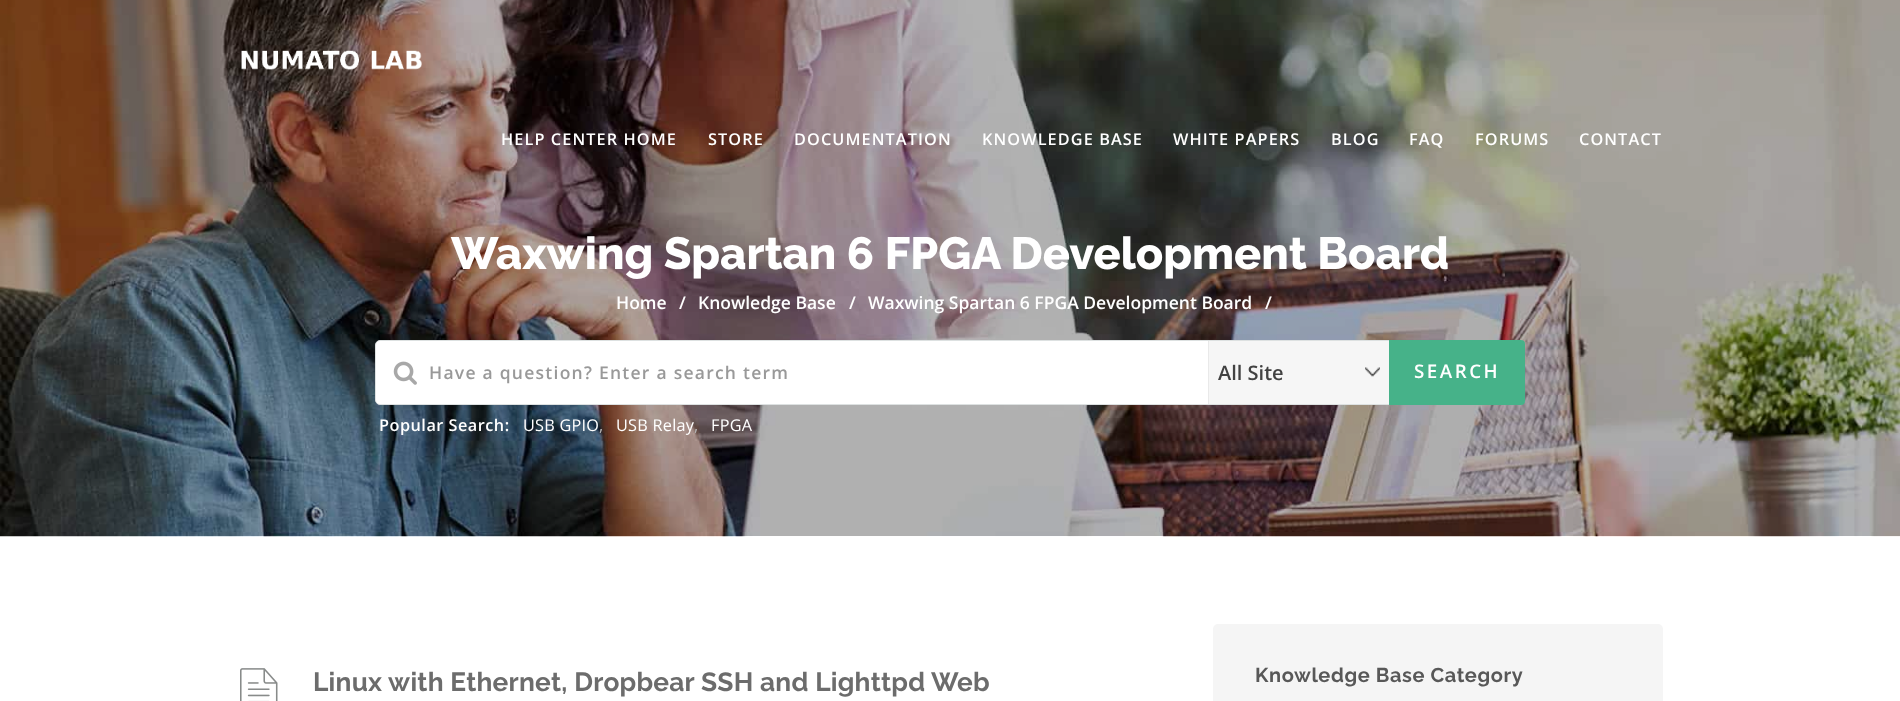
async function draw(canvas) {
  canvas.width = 1900
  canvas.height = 701
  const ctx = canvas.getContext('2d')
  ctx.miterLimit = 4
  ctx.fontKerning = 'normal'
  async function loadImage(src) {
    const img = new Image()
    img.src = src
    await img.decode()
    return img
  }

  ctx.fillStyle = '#fff'
  ctx.fillRect(0, 0, 1900, 701)
  ctx.drawImage(await loadImage('image1.png'), 0, 0, 1900, 537)
  ctx.drawImage(await loadImage('image0.png'), 241, 50, 181, 20)
  ctx.letterSpacing = '1.1px'
  ctx.font = '600 16.25px Open Sans'
  ctx.fillText('HELP CENTER HOME', 501, 145)
  ctx.fillText('STORE', 708, 145)
  ctx.fillText('DOCUMENTATION', 794, 145)
  ctx.fillText('KNOWLEDGE BASE', 982, 145)
  ctx.fillText('WHITE PAPERS', 1173, 145)
  ctx.fillText('BLOG', 1331, 145)
  ctx.fillText('FAQ', 1409, 145)
  ctx.fillText('FORUMS', 1475, 145)
  ctx.fillText('CONTACT', 1579, 145)
  ctx.letterSpacing = '0px'
  ctx.font = '800 45px Raleway'
  ctx.fillText('Waxwing Spartan 6 FPGA Development Board', 451, 269)
  ctx.font = '600 17.5px Open Sans'
  ctx.fillText('Home', 616, 309)
  ctx.fillText('/', 679, 309)
  ctx.fillText('Knowledge Base', 698, 309)
  ctx.fillText('/', 849, 309)
  ctx.fillText('Waxwing Spartan 6 FPGA Development Board', 868, 309)
  ctx.fillText('/', 1265, 309)
  ctx.beginPath()
  ctx.roundRect(375.5, 340.5, 1149, 64, 4.5)
  ctx.fill()
  ctx.strokeStyle = '#dde1e1'
  ctx.stroke()
  ctx.drawImage(await loadImage('image2.png'), 393, 361, 24, 24)
  ctx.letterSpacing = '1.25px'
  ctx.fillStyle = '#999'
  ctx.fillText('Have a question? Enter a search term', 429, 379)
  ctx.fillStyle = '#f6f6f6'
  ctx.fillRect(1209, 341, 180, 63)
  ctx.drawImage(await loadImage('image3.png'), 1365, 367, 15, 10)
  ctx.fillStyle = '#e9e9e9'
  ctx.fillRect(1208, 341, 1, 63)
  ctx.letterSpacing = '0px'
  ctx.font = '600 20px Open Sans'
  ctx.fillStyle = '#424242'
  ctx.fillText('All Site', 1218, 380)
  ctx.fillStyle = '#46b289'
  ctx.beginPath()
  ctx.roundRect(1389, 340, 136, 65, [0, 4, 4, 0])
  ctx.fill()
  ctx.letterSpacing = '2.5px'
  ctx.font = '600 18.75px Open Sans'
  ctx.fillStyle = '#fff'
  ctx.fillText('SEARCH', 1414, 378)
  ctx.letterSpacing = '0.5px'
  ctx.font = '600 16.25px Open Sans'
  ctx.fillText('Popular Search:', 379, 431)
  ctx.letterSpacing = '0.25px'
  ctx.font = '16.25px Open Sans'
  ctx.fillText('USB GPIO', 523, 431)
  ctx.letterSpacing = '0px'
  ctx.fillStyle = '#b5b5b5'
  ctx.fillText(',', 599, 431)
  ctx.letterSpacing = '0.25px'
  ctx.fillStyle = '#fff'
  ctx.fillText('USB Relay', 616, 431)
  ctx.letterSpacing = '0px'
  ctx.fillStyle = '#b5b5b5'
  ctx.fillText(',', 694, 431)
  ctx.letterSpacing = '0.25px'
  ctx.fillStyle = '#fff'
  ctx.fillText('FPGA', 711, 431)
  ctx.drawImage(await loadImage('image4.png'), 240, 668, 38, 33)
  ctx.font = 'bold 26.25px Raleway'
  ctx.fillStyle = '#6c6c6c'
  ctx.fillText('Linux with Ethernet, Dropbear SSH and Lighttpd Web', 313, 691)
  ctx.fillStyle = '#f5f5f5'
  ctx.beginPath()
  ctx.roundRect(1213, 624, 450, 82, 5)
  ctx.fill()
  ctx.letterSpacing = '0.6px'
  ctx.font = 'bold 20px Raleway'
  ctx.fillStyle = '#585858'
  ctx.fillText('Knowledge Base Category', 1255, 682)
}

draw(document.querySelector('canvas'))
